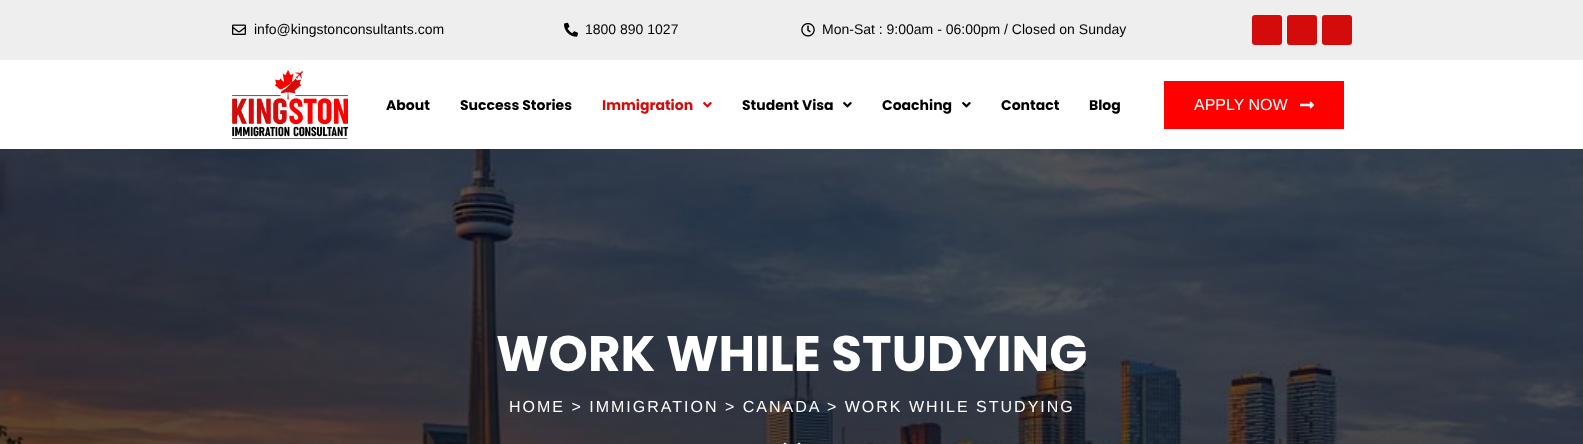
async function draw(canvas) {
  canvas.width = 1583
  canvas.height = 444
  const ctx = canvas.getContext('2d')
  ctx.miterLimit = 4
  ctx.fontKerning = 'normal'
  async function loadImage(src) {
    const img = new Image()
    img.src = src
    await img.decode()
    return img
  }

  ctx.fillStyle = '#fff'
  ctx.fillRect(0, 0, 1583, 444)
  ctx.drawImage(await loadImage('image7.png'), 0, 149, 1583, 295)
  ctx.fillStyle = '#00000029'
  ctx.filter = 'blur(3px)'
  ctx.beginPath()
  ctx.rect(-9, 160, 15, 53)
  ctx.fill()
  ctx.filter = 'none'
  ctx.fillStyle = '#eee'
  ctx.fillRect(0, 0, 1583, 60)
  ctx.drawImage(await loadImage('image0.png'), 232, 24, 14, 11)
  ctx.font = '14px Liberation Sans'
  ctx.fillStyle = '#000'
  ctx.fillText('info@kingstonconsultants.com', 254, 34)
  ctx.drawImage(await loadImage('image1.png'), 564, 22, 14, 15)
  ctx.fillText('1800 890 1027', 585, 34)
  ctx.drawImage(await loadImage('image2.png'), 801, 23, 14, 14)
  ctx.fillText('Mon-Sat : 9:00am - 06:00pm / Closed on Sunday', 822, 34)
  ctx.fillStyle = '#d40b0b'
  ctx.beginPath()
  ctx.roundRect(1252, 15, 30, 30, 3)
  ctx.fill()
  ctx.beginPath()
  ctx.roundRect(1287, 15, 30, 30, 3)
  ctx.fill()
  ctx.beginPath()
  ctx.roundRect(1322, 15, 30, 30, 3)
  ctx.fill()
  ctx.drawImage(await loadImage('image3.png'), 232, 70, 116, 69)
  ctx.font = 'bold 14px Poppins'
  ctx.fillStyle = '#000'
  ctx.fillText('About', 386, 110)
  ctx.fillText('Success Stories', 460, 110)
  ctx.fillStyle = '#d40b0b'
  ctx.fillText('Immigration', 602, 110)
  ctx.drawImage(await loadImage('image4.png'), 703, 102, 9, 6)
  ctx.fillStyle = '#000'
  ctx.fillText('Student Visa', 742, 110)
  ctx.drawImage(await loadImage('image5.png'), 843, 102, 9, 6)
  ctx.fillText('Coaching', 882, 110)
  ctx.drawImage(await loadImage('image5.png'), 962, 102, 9, 6)
  ctx.fillText('Contact', 1001, 110)
  ctx.fillText('Blog', 1089, 110)
  ctx.fillStyle = '#f00'
  ctx.fillRect(1164, 81, 180, 48)
  ctx.font = '16px Liberation Sans'
  ctx.fillStyle = '#fff'
  ctx.fillText('APPLY NOW', 1194, 110)
  ctx.drawImage(await loadImage('image6.png'), 1300, 101, 14, 8)
  ctx.font = 'bold 50px Poppins'
  ctx.fillText('WORK WHILE STUDYING', 496, 371)
  ctx.letterSpacing = '2px'
  ctx.font = '16px Liberation Sans'
  ctx.fillText('HOME > IMMIGRATION > CANADA > WORK WHILE STUDYING', 509, 412)
  ctx.drawImage(await loadImage('image8.png'), 783, 442, 18, 2)
}

draw(document.querySelector('canvas'))
